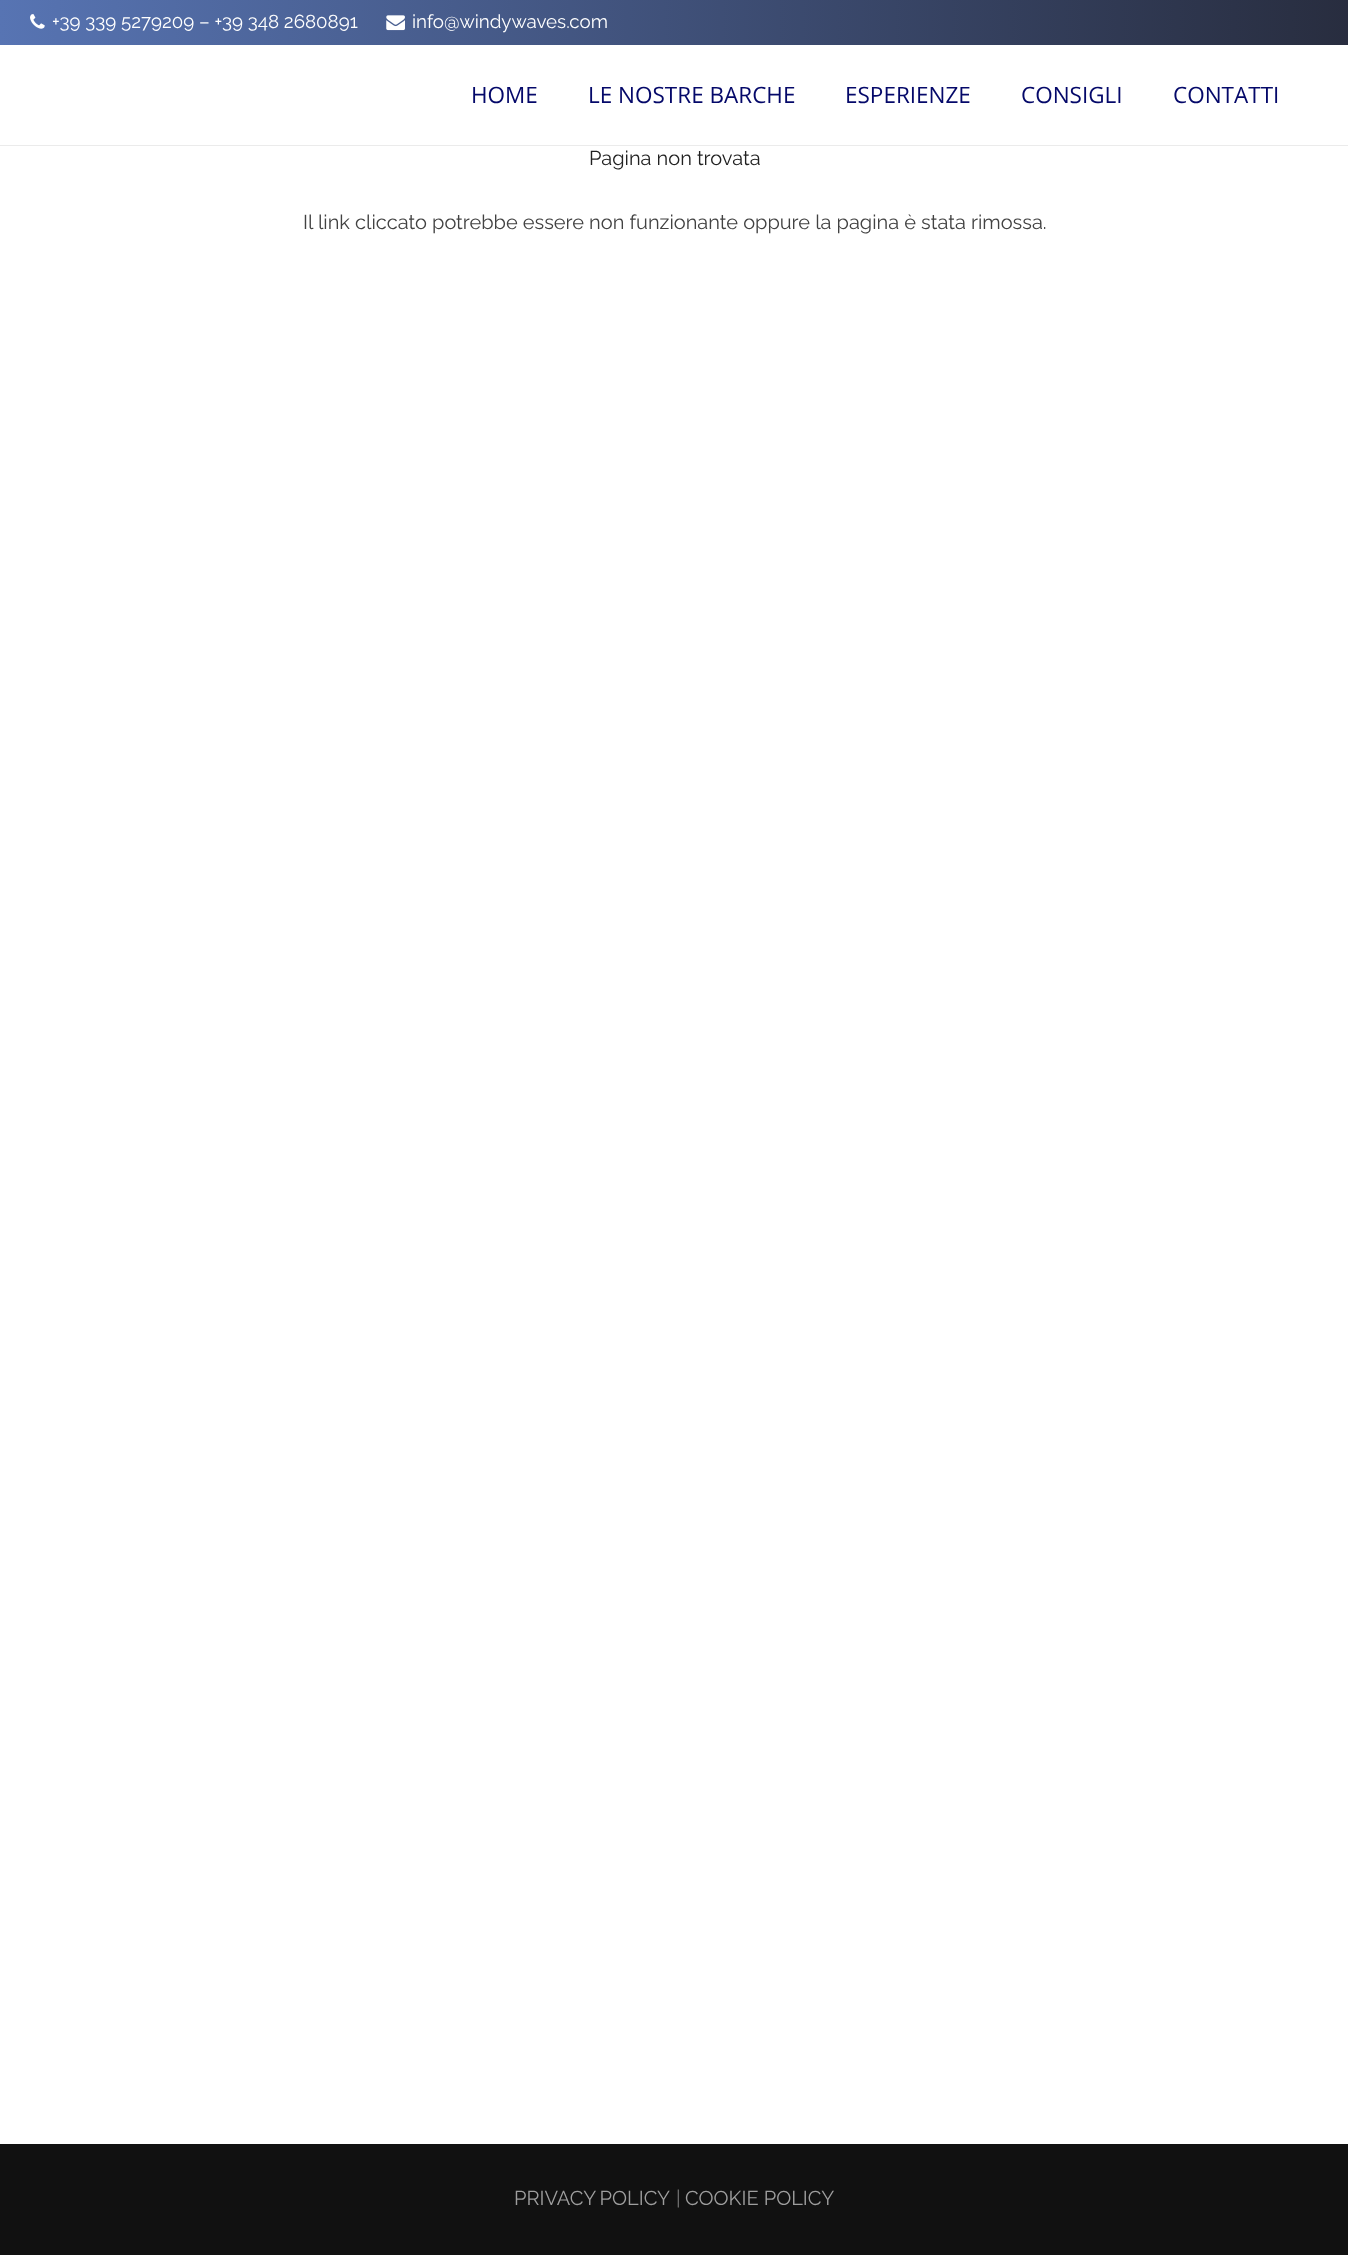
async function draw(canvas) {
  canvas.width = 1348
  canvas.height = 2255
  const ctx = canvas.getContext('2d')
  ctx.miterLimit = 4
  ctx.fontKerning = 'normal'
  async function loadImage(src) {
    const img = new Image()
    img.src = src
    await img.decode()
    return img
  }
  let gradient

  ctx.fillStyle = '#fff'
  ctx.fillRect(0, 0, 1348, 2255)
  gradient = ctx.createLinearGradient(0, 23, 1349, 22)
  gradient.addColorStop(0, '#5774b3')
  gradient.addColorStop(1, '#282d3f')
  ctx.fillStyle = gradient
  ctx.fillRect(0, 0, 1348, 45)
  ctx.drawImage(await loadImage('image0.png'), 30, 14, 15, 15)
  ctx.font = '18.75px Raleway'
  ctx.fillStyle = '#fff'
  ctx.fillText('+39 339 5279209 – +39 348 2680891', 52, 28)
  ctx.drawImage(await loadImage('image1.png'), 386, 15, 19, 16)
  ctx.fillText('info@windywaves.com', 412, 28)
  ctx.fillStyle = '#ebebeb'
  ctx.beginPath()
  ctx.moveTo(0, 145)
  ctx.lineTo(0, 146)
  ctx.lineTo(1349, 146)
  ctx.lineTo(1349, 46)
  ctx.lineTo(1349, 145)
  ctx.closePath()
  ctx.fill()
  ctx.font = '22.5px Open Sans'
  ctx.fillStyle = '#040869'
  ctx.fillText('HOME', 471, 103)
  ctx.fillText('LE NOSTRE BARCHE', 588, 103)
  ctx.fillText('ESPERIENZE', 845, 103)
  ctx.fillText('CONSIGLI', 1021, 103)
  ctx.fillText('CONTATTI', 1173, 103)
  ctx.font = '20px Raleway'
  ctx.fillStyle = '#212121'
  ctx.fillText('Pagina non trovata', 589, 165)
  ctx.fillStyle = '#424242'
  ctx.fillText('Il link cliccato potrebbe essere non funzionante oppure la pagina è stata rimossa.', 303, 229)
  ctx.fillStyle = '#111'
  ctx.fillRect(0, 2144, 1348, 111)
  ctx.wordSpacing = '-1px'
  ctx.fillStyle = '#9e9e9e'
  ctx.fillText('PRIVACY POLICY', 514, 2205)
  ctx.wordSpacing = '0px'
  ctx.fillStyle = '#757575'
  ctx.fillText('|', 676, 2205)
  ctx.fillStyle = '#9e9e9e'
  ctx.fillText('COOKIE POLICY', 685, 2205)
}

draw(document.querySelector('canvas'))
